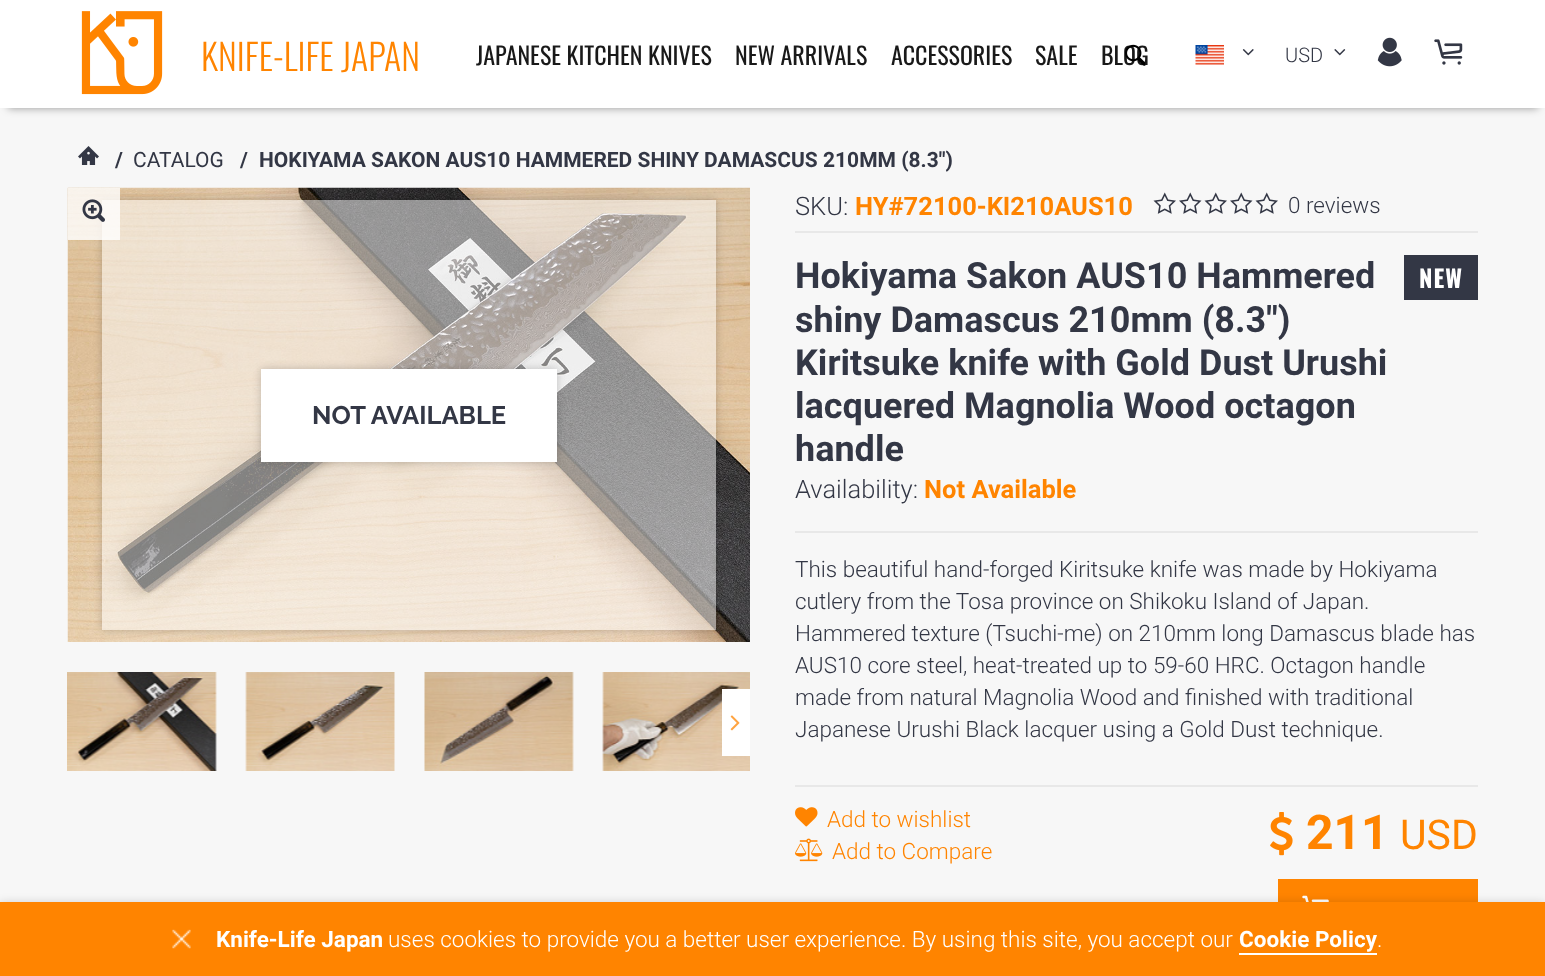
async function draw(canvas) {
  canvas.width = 1545
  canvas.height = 976
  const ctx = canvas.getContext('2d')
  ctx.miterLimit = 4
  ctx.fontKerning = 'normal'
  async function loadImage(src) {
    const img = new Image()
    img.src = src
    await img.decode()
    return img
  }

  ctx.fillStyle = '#f7f7f7'
  ctx.fillRect(0, 0, 1545, 976)
  ctx.fillStyle = '#00000066'
  ctx.filter = 'blur(4px)'
  ctx.beginPath()
  ctx.rect(8, 15, 1530, 93)
  ctx.fill()
  ctx.filter = 'none'
  ctx.fillStyle = '#fff'
  ctx.fillRect(0, 0, 1545, 108)
  ctx.drawImage(await loadImage('image0.png'), 81, 11, 82, 84)
  ctx.font = '300 36px Oswald'
  ctx.fillStyle = '#ff8400'
  ctx.fillText('KNIFE-LIFE JAPAN', 201, 71)
  ctx.font = '24px Oswald'
  ctx.fillStyle = '#191919'
  ctx.fillText('BLOG', 1101, 65)
  ctx.drawImage(await loadImage('image1.png'), 1125, 44, 21, 22)
  ctx.fillText('JAPANESE KITCHEN KNIVES', 476, 65)
  ctx.fillText('NEW ARRIVALS', 735, 65)
  ctx.fillText('ACCESSORIES', 891, 65)
  ctx.fillText('SALE', 1035, 65)
  ctx.drawImage(await loadImage('image2.png'), 1195, 45, 29, 20)
  ctx.drawImage(await loadImage('image3.png'), 1242, 49, 12, 7)
  ctx.font = '300 20px Roboto'
  ctx.fillStyle = '#333745'
  ctx.fillText('USD', 1285, 62)
  ctx.drawImage(await loadImage('image4.png'), 1334, 49, 12, 7)
  ctx.drawImage(await loadImage('image5.png'), 1377, 37, 25, 30)
  ctx.drawImage(await loadImage('image6.png'), 1434, 39, 29, 26)
  ctx.drawImage(await loadImage('image7.png'), 78, 146, 21, 19)
  ctx.font = 'bold 21px Roboto'
  ctx.fillText('/', 115, 167)
  ctx.font = '21px Roboto'
  ctx.fillText('CATALOG', 133, 167)
  ctx.font = 'bold 21px Roboto'
  ctx.fillText('/', 240, 167)
  ctx.fillText('HOKIYAMA SAKON AUS10 HAMMERED SHINY DAMASCUS 210MM (8.3")', 259, 167)
  ctx.drawImage(await loadImage('image8.png'), 67, 187, 683, 455)
  ctx.save()
  ctx.beginPath()
  ctx.moveTo(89, 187)
  ctx.lineTo(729, 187)
  ctx.lineTo(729, 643)
  ctx.lineTo(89, 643)
  ctx.closePath()
  ctx.moveTo(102, 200)
  ctx.lineTo(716, 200)
  ctx.lineTo(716, 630)
  ctx.lineTo(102, 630)
  ctx.closePath()
  ctx.clip('evenodd')
  ctx.fillStyle = '#00000033'
  ctx.filter = 'blur(4px)'
  ctx.beginPath()
  ctx.rect(102, 200, 614, 430)
  ctx.fill()
  ctx.filter = 'none'
  ctx.restore()
  ctx.fillStyle = '#ffffff80'
  ctx.fillRect(102, 200, 614, 430)
  ctx.fillStyle = '#ffffffcc'
  ctx.fillRect(68, 188, 52, 52)
  ctx.drawImage(await loadImage('image9.png'), 82, 199, 23, 23)
  ctx.fillStyle = '#00000033'
  ctx.filter = 'blur(4px)'
  ctx.beginPath()
  ctx.rect(261, 369, 296, 93)
  ctx.fill()
  ctx.filter = 'none'
  ctx.fillStyle = '#fff'
  ctx.fillRect(261, 369, 296, 93)
  ctx.font = 'bold 25.5px Raleway'
  ctx.fillStyle = '#333745'
  ctx.fillText('NOT AVAILABLE', 312, 424)
  ctx.drawImage(await loadImage('image10.png'), 67, 672, 150, 99)
  ctx.drawImage(await loadImage('image11.png'), 245, 672, 150, 99)
  ctx.drawImage(await loadImage('image12.png'), 424, 672, 150, 99)
  ctx.drawImage(await loadImage('image13.png'), 602, 672, 148, 99)
  ctx.fillStyle = '#fff'
  ctx.fillRect(722, 689, 28, 67)
  ctx.drawImage(await loadImage('image14.png'), 730, 715, 10, 16)
  ctx.fillStyle = '#e8e8e8'
  ctx.fillRect(795, 231, 683, 2)
  ctx.font = '300 25.5px Roboto'
  ctx.fillStyle = '#333745'
  ctx.fillText('SKU:', 795, 215)
  ctx.font = 'bold 25.5px Roboto'
  ctx.fillStyle = '#ff8400'
  ctx.fillText('HY#72100-KI210AUS10', 855, 215)
  ctx.drawImage(await loadImage('image15.png'), 1153, 192, 23, 22)
  ctx.drawImage(await loadImage('image16.png'), 1179, 192, 23, 22)
  ctx.drawImage(await loadImage('image15.png'), 1204, 192, 23, 22)
  ctx.drawImage(await loadImage('image16.png'), 1230, 192, 23, 22)
  ctx.drawImage(await loadImage('image15.png'), 1255, 192, 23, 22)
  ctx.font = '300 22.5px Roboto'
  ctx.fillStyle = '#333745'
  ctx.fillText('0 reviews', 1288, 213)
  ctx.font = 'bold 36px Roboto'
  ctx.fillText('Hokiyama Sakon AUS10 Hammered', 795, 288)
  ctx.fillText('shiny Damascus 210mm (8.3")', 795, 332)
  ctx.fillText('Kiritsuke knife with Gold Dust Urushi', 795, 375)
  ctx.fillText('lacquered Magnolia Wood octagon', 795, 418)
  ctx.fillText('handle', 795, 461)
  ctx.fillRect(1404, 255, 74, 45)
  ctx.letterSpacing = '1px'
  ctx.font = 'bold 24px Oswald'
  ctx.fillStyle = '#fff'
  ctx.fillText('NEW', 1419, 288)
  ctx.fillStyle = '#e8e8e8'
  ctx.fillRect(795, 531, 683, 2)
  ctx.letterSpacing = '0px'
  ctx.font = '300 25.5px Roboto'
  ctx.fillStyle = '#333745'
  ctx.fillText('Availability:', 795, 498)
  ctx.font = 'bold 25.5px Roboto'
  ctx.fillStyle = '#ff8400'
  ctx.fillText('Not Available', 924, 498)
  ctx.fillStyle = '#e8e8e8'
  ctx.fillRect(795, 785, 683, 2)
  ctx.font = '300 22.5px Roboto'
  ctx.fillStyle = '#333745'
  ctx.fillText('This beautiful hand-forged Kiritsuke knife was made by Hokiyama', 795, 577)
  ctx.fillText('cutlery from the Tosa province on Shikoku Island of Japan.', 795, 609)
  ctx.fillText('Hammered texture (Tsuchi-me) on 210mm long Damascus blade has', 795, 641)
  ctx.fillText('AUS10 core steel, heat-treated up to 59-60 HRC. Octagon handle', 795, 673)
  ctx.fillText('made from natural Magnolia Wood and finished with traditional', 795, 705)
  ctx.fillText('Japanese Urushi Black lacquer using a Gold Dust technique.', 795, 737)
  ctx.drawImage(await loadImage('image17.png'), 795, 807, 23, 20)
  ctx.fillStyle = '#ff8400'
  ctx.fillText('Add to wishlist', 827, 827)
  ctx.drawImage(await loadImage('image18.png'), 795, 838, 28, 24)
  ctx.fillText('Add to Compare', 832, 859)
  ctx.drawImage(await loadImage('image19.png'), 1270, 812, 23, 44)
  ctx.font = 'bold 48px Roboto'
  ctx.fillText('211', 1306, 849)
  ctx.font = '41px Roboto'
  ctx.fillText('USD', 1400, 849)
  ctx.fillRect(1278, 879, 200, 23)
  ctx.drawImage(await loadImage('image20.png'), 1302, 895, 27, 7)
  ctx.fillStyle = '#00000026'
  ctx.filter = 'blur(4px)'
  ctx.beginPath()
  ctx.rect(0, 902, 1545, 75)
  ctx.fill()
  ctx.filter = 'none'
  ctx.fillStyle = '#ff8400'
  ctx.fillRect(0, 902, 1545, 74)
  ctx.drawImage(await loadImage('image21.png'), 172, 929, 19, 20)
  ctx.font = 'bold 22.5px Roboto'
  ctx.fillStyle = '#fff'
  ctx.fillText('Knife-Life Japan', 216, 947)
  ctx.font = '300 22.5px Roboto'
  ctx.fillText('uses cookies to provide you a better user experience. By using this site, you accept our', 388, 947)
  ctx.font = 'bold 22.5px Roboto'
  ctx.fillText('Cookie Policy', 1239, 947)
  ctx.fillRect(1239, 953, 138, 2)
  ctx.font = '300 22.5px Roboto'
  ctx.fillText('.', 1377, 947)
}

draw(document.querySelector('canvas'))
